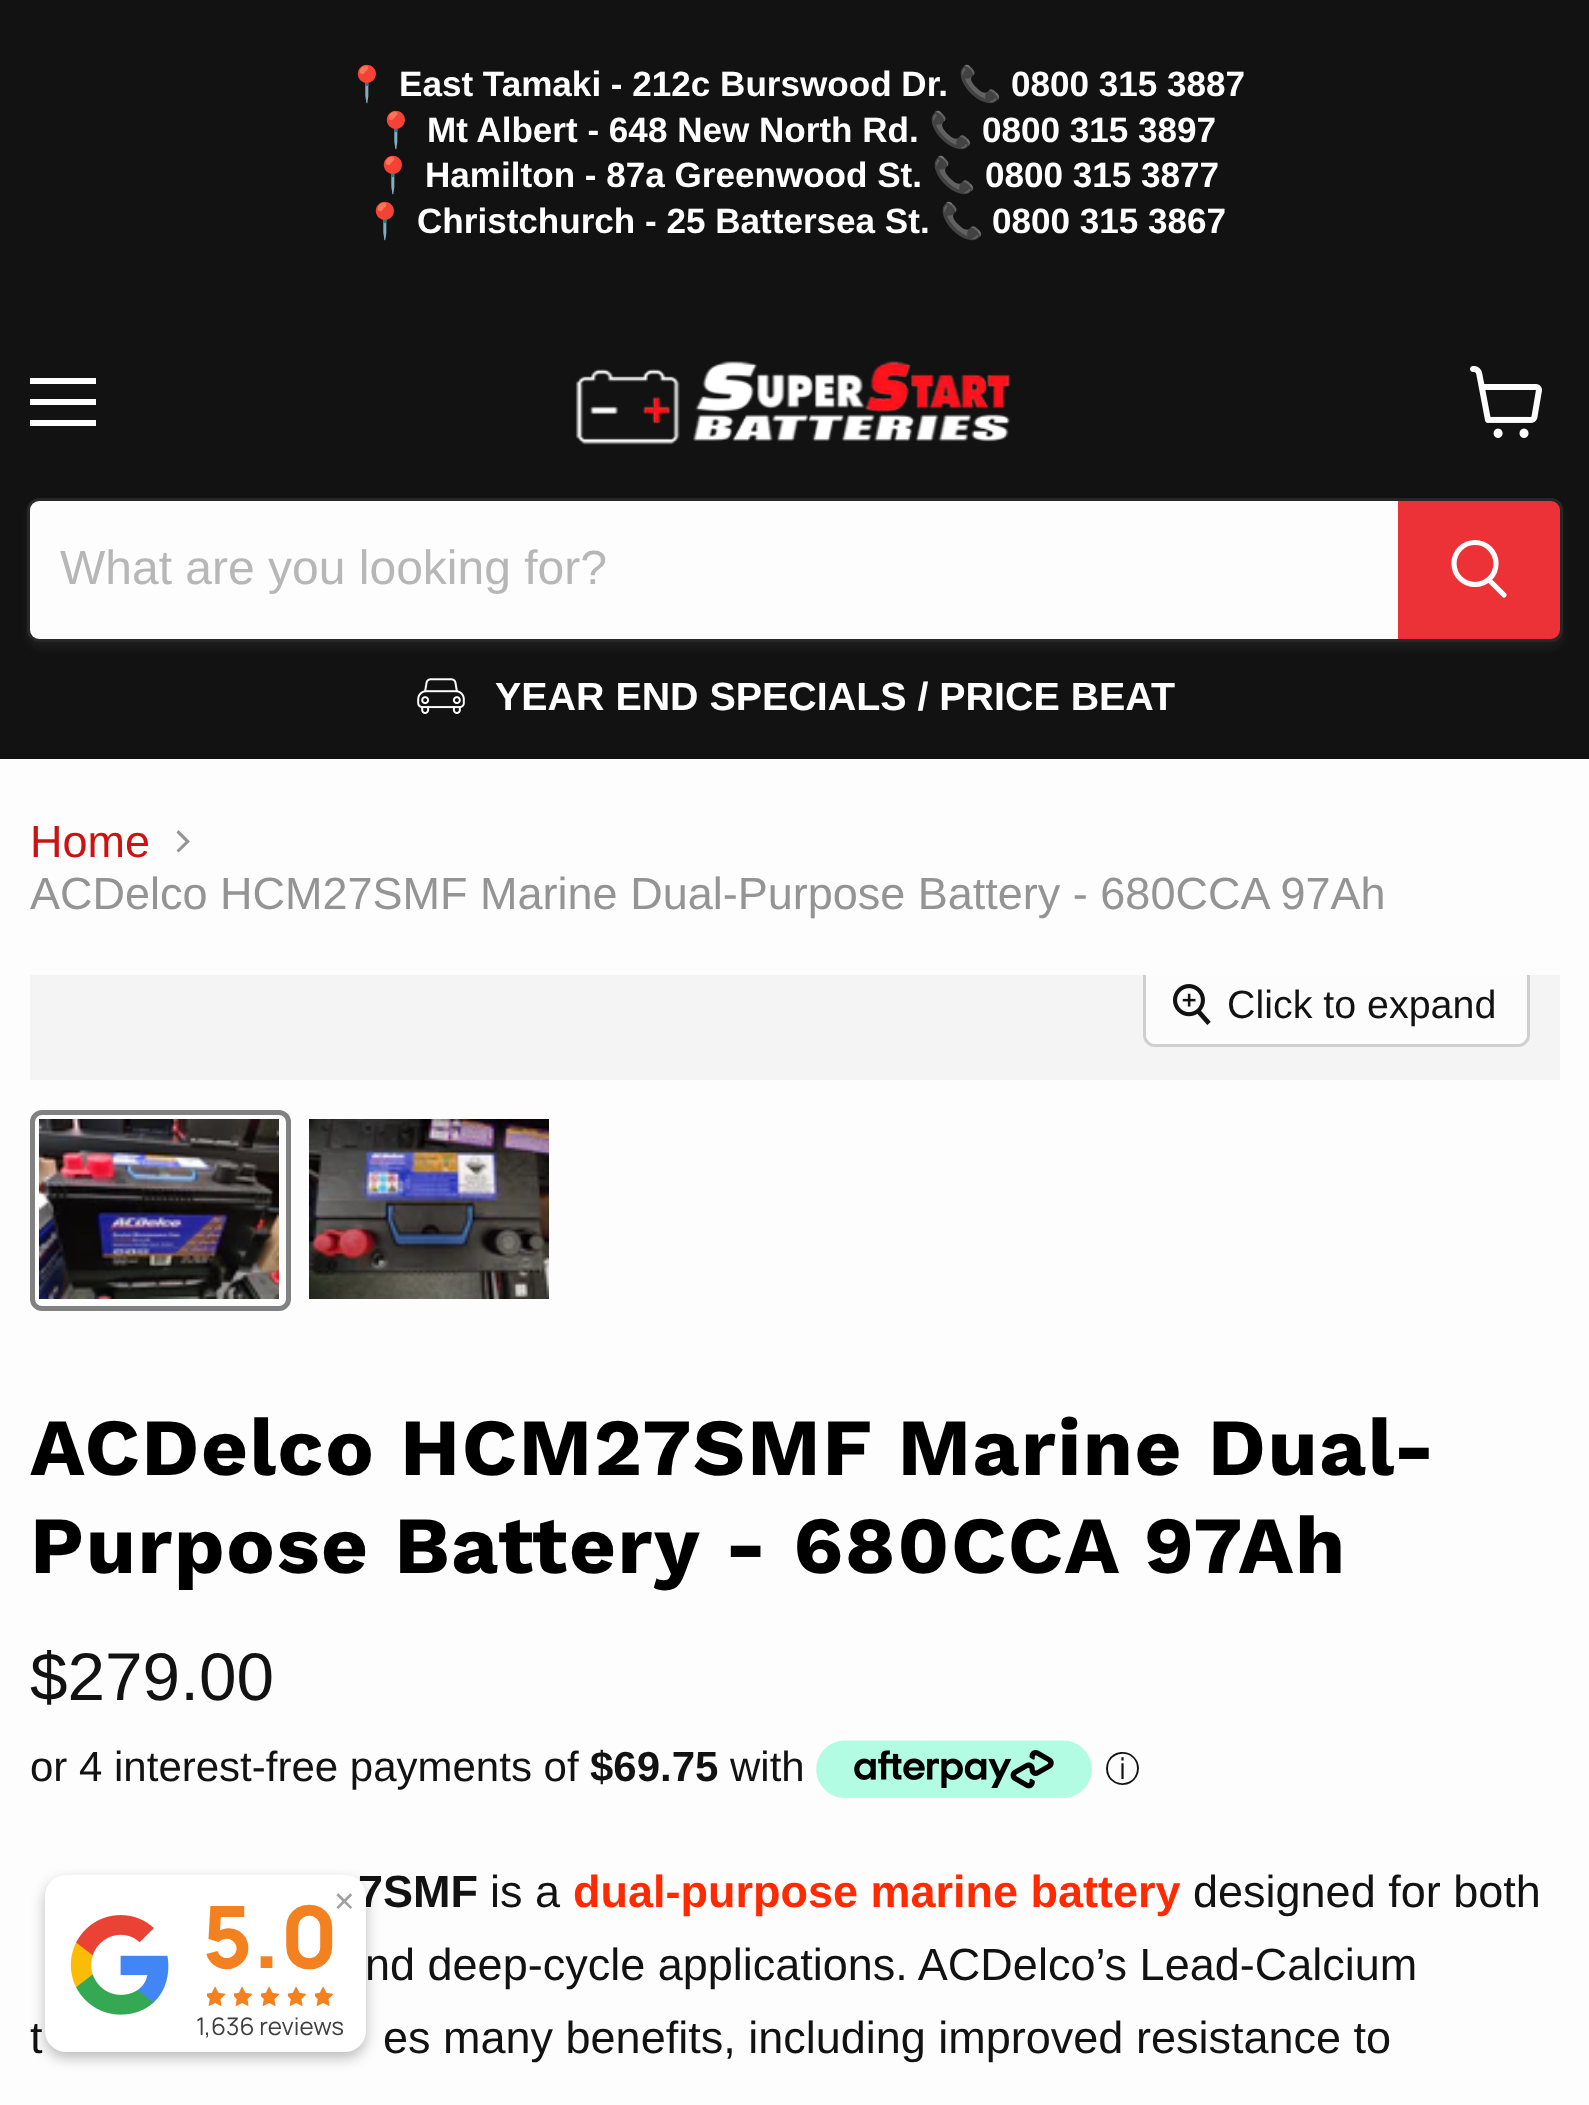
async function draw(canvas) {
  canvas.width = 1589
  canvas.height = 2105
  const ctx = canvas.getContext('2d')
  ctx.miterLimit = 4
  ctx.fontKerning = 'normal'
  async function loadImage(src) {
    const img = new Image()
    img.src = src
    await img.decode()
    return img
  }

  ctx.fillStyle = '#fdfdfd'
  ctx.fillRect(0, 0, 1589, 2105)
  ctx.fillStyle = '#121212'
  ctx.fillRect(0, 0, 1589, 759)
  ctx.font = 'bold 35.1px Noto Color Emoji'
  ctx.fillStyle = '#fff'
  ctx.fillText('📍', 345, 96)
  ctx.font = 'bold 35.1px Liberation Sans'
  ctx.fillText('East Tamaki - 212c Burswood Dr.', 399, 96)
  ctx.font = 'bold 35.1px Noto Color Emoji'
  ctx.fillText('📞', 958, 96)
  ctx.font = 'bold 35.1px Liberation Sans'
  ctx.fillText('0800 315 3887', 1011, 96)
  ctx.font = 'bold 35.1px Noto Color Emoji'
  ctx.fillText('📍', 374, 142)
  ctx.font = 'bold 35.1px Liberation Sans'
  ctx.fillText('Mt Albert - 648 New North Rd.', 427, 142)
  ctx.font = 'bold 35.1px Noto Color Emoji'
  ctx.fillText('📞', 929, 142)
  ctx.font = 'bold 35.1px Liberation Sans'
  ctx.fillText('0800 315 3897', 982, 142)
  ctx.font = 'bold 35.1px Noto Color Emoji'
  ctx.fillText('📍', 371, 187)
  ctx.font = 'bold 35.1px Liberation Sans'
  ctx.fillText('Hamilton - 87a Greenwood St.', 425, 187)
  ctx.font = 'bold 35.1px Noto Color Emoji'
  ctx.fillText('📞', 932, 187)
  ctx.font = 'bold 35.1px Liberation Sans'
  ctx.fillText('0800 315 3877', 985, 187)
  ctx.font = 'bold 35.1px Noto Color Emoji'
  ctx.fillText('📍', 363, 233)
  ctx.font = 'bold 35.1px Liberation Sans'
  ctx.fillText('Christchurch - 25 Battersea St.', 417, 233)
  ctx.font = 'bold 35.1px Noto Color Emoji'
  ctx.fillText('📞', 940, 233)
  ctx.font = 'bold 35.1px Liberation Sans'
  ctx.fillText('0800 315 3867', 992, 233)
  ctx.fillStyle = '#fdfdfd'
  ctx.fillRect(30, 378, 66, 6)
  ctx.fillRect(30, 399, 66, 6)
  ctx.fillRect(30, 420, 66, 6)
  ctx.drawImage(await loadImage('image0.png'), 1470, 366, 72, 72)
  ctx.drawImage(await loadImage('image1.png'), 575, 361, 436, 84)
  ctx.save()
  ctx.beginPath()
  ctx.moveTo(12, 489)
  ctx.lineTo(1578, 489)
  ctx.lineTo(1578, 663)
  ctx.lineTo(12, 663)
  ctx.closePath()
  ctx.moveTo(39, 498)
  ctx.lineTo(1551, 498)
  ctx.bezierCurveTo(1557.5, 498, 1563, 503.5, 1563, 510)
  ctx.lineTo(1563, 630)
  ctx.bezierCurveTo(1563, 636.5, 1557.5, 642, 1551, 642)
  ctx.lineTo(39, 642)
  ctx.bezierCurveTo(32.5, 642, 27, 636.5, 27, 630)
  ctx.lineTo(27, 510)
  ctx.bezierCurveTo(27, 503.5, 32.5, 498, 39, 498)
  ctx.closePath()
  ctx.clip('evenodd')
  ctx.fillStyle = '#7f7f7f1c'
  ctx.filter = 'blur(4.5px)'
  ctx.beginPath()
  ctx.roundRect(27, 504, 1536, 144, 12)
  ctx.fill()
  ctx.filter = 'none'
  ctx.restore()
  ctx.beginPath()
  ctx.roundRect(28.5, 499.5, 1533, 141, 10.5)
  ctx.strokeStyle = '#7f7f7f33'
  ctx.lineWidth = 3
  ctx.stroke()
  ctx.beginPath()
  ctx.roundRect(30, 501, 1368, 138, [9, 0, 0, 9])
  ctx.fill()
  ctx.font = '48px Liberation Sans'
  ctx.fillStyle = '#b7b7b7'
  ctx.fillText('What are you looking for?', 60, 584)
  ctx.fillStyle = '#ed3237'
  ctx.beginPath()
  ctx.roundRect(1399.5, 502.5, 159, 135, [0, 7.5, 7.5, 0])
  ctx.fill()
  ctx.strokeStyle = '#ed3237'
  ctx.stroke()
  ctx.beginPath()
  ctx.moveTo(1504, 595)
  ctx.lineTo(1489.5, 580.5)
  ctx.strokeStyle = '#fdfdfd'
  ctx.lineWidth = 5.2
  ctx.lineCap = 'round'
  ctx.stroke()
  ctx.beginPath()
  ctx.arc(1475, 563.5, 21, 0, 2 * Math.PI)
  ctx.stroke()
  ctx.drawImage(await loadImage('image2.png'), 417, 678, 48, 36)
  ctx.font = 'bold 39.4px Liberation Sans'
  ctx.fillStyle = '#fff'
  ctx.fillText('YEAR END SPECIALS / PRICE BEAT', 495, 710)
  ctx.font = '45px Liberation Sans'
  ctx.fillStyle = '#cc1313'
  ctx.fillText('Home', 30, 857)
  ctx.fillStyle = '#949494'
  ctx.beginPath()
  ctx.moveTo(176.5, 850.5)
  ctx.lineTo(178.5, 852.5)
  ctx.lineTo(190, 841.5)
  ctx.lineTo(178.5, 830)
  ctx.lineTo(176.5, 832.5)
  ctx.lineTo(185.5, 841.5)
  ctx.closePath()
  ctx.fill('evenodd')
  ctx.fillText('ACDelco HCM27SMF Marine Dual-Purpose Battery - 680CCA 97Ah', 30, 909)
  ctx.fillStyle = '#f4f4f4'
  ctx.fillRect(30, 975, 1530, 105)
  ctx.save()
  ctx.beginPath()
  ctx.rect(30, 975, 1530, 105)
  ctx.clip()
  ctx.beginPath()
  ctx.roundRect(1144.5, 961.5, 384, 84, 10.5)
  ctx.strokeStyle = '#cfcfcf'
  ctx.lineWidth = 3
  ctx.stroke()
  ctx.restore()
  ctx.fillStyle = '#fdfdfde6'
  ctx.beginPath()
  ctx.roundRect(1146, 975, 381, 69, [0, 0, 9, 9])
  ctx.fill()
  ctx.drawImage(await loadImage('image3.png'), 1173, 984, 38, 41)
  ctx.font = '39.4px Liberation Sans'
  ctx.fillStyle = '#121212'
  ctx.fillText('Click to expand', 1227, 1018)
  ctx.beginPath()
  ctx.roundRect(32.5, 1112.5, 256, 196, 9.5)
  ctx.strokeStyle = '#818181'
  ctx.lineWidth = 5
  ctx.stroke()
  ctx.drawImage(await loadImage('image4.png'), 39, 1119, 240, 180)
  ctx.drawImage(await loadImage('image5.png'), 309, 1119, 240, 180)
  ctx.letterSpacing = '1.6px'
  ctx.font = 'bold 81px Work Sans'
  ctx.fillStyle = '#000'
  ctx.fillText('ACDelco HCM27SMF Marine Dual-', 30, 1475)
  ctx.fillText('Purpose Battery - 680CCA 97Ah', 30, 1573)
  ctx.letterSpacing = '0px'
  ctx.font = '67.5px Liberation Sans'
  ctx.fillStyle = '#121212'
  ctx.fillText('$279.00', 30, 1700)
  ctx.font = '42px Liberation Sans'
  ctx.fillText('or 4 interest-free payments of', 30, 1781)
  ctx.font = 'bold 42px Liberation Sans'
  ctx.fillText('$69.75', 590, 1781)
  ctx.font = '42px Liberation Sans'
  ctx.fillText('with', 730, 1781)
  ctx.drawImage(await loadImage('image6.png'), 816, 1740, 276, 58)
  ctx.font = '500 35px WenQuanYi Zen Hei'
  ctx.fillText('ⓘ', 1105, 1781)
  ctx.font = 'bold 45px Liberation Sans'
  ctx.fillText('7SMF', 358, 1907)
  ctx.font = '45px Liberation Sans'
  ctx.fillText('is a', 490, 1907)
  ctx.font = 'bold 45px Liberation Sans'
  ctx.fillStyle = '#ff2a00'
  ctx.fillText('dual-purpose marine battery', 573, 1907)
  ctx.font = '45px Liberation Sans'
  ctx.fillStyle = '#121212'
  ctx.fillText('designed for both', 1193, 1907)
  ctx.fillText('nd deep-cycle applications. ACDelco’s Lead-Calcium', 365, 1980)
  ctx.fillText('t', 30, 2053)
  ctx.fillText('es many benefits, including improved resistance to', 383, 2053)
  ctx.fillStyle = '#00000042'
  ctx.filter = 'blur(7px)'
  ctx.beginPath()
  ctx.roundRect(45, 1881, 321, 177, 21)
  ctx.fill()
  ctx.filter = 'none'
  ctx.fillStyle = '#fff'
  ctx.beginPath()
  ctx.roundRect(45, 1875, 321, 177, 21)
  ctx.fill()
  ctx.font = '27px DejaVu Sans'
  ctx.fillStyle = '#a0a0a0'
  ctx.fillText('✕', 333, 1911)
  ctx.drawImage(await loadImage('image7.png'), 70, 1915, 99, 100)
  ctx.font = '800 86px Manrope'
  ctx.fillStyle = '#f48120'
  ctx.fillText('5.0', 202, 1968)
  ctx.drawImage(await loadImage('image8.png'), 207, 1986, 19, 20)
  ctx.drawImage(await loadImage('image8.png'), 234, 1986, 19, 20)
  ctx.drawImage(await loadImage('image8.png'), 261, 1986, 19, 20)
  ctx.drawImage(await loadImage('image8.png'), 288, 1986, 19, 20)
  ctx.drawImage(await loadImage('image8.png'), 315, 1986, 19, 20)
  ctx.font = '24.25px Manrope'
  ctx.fillStyle = '#404040'
  ctx.fillText('1,636 reviews', 196, 2035)
}

draw(document.querySelector('canvas'))
